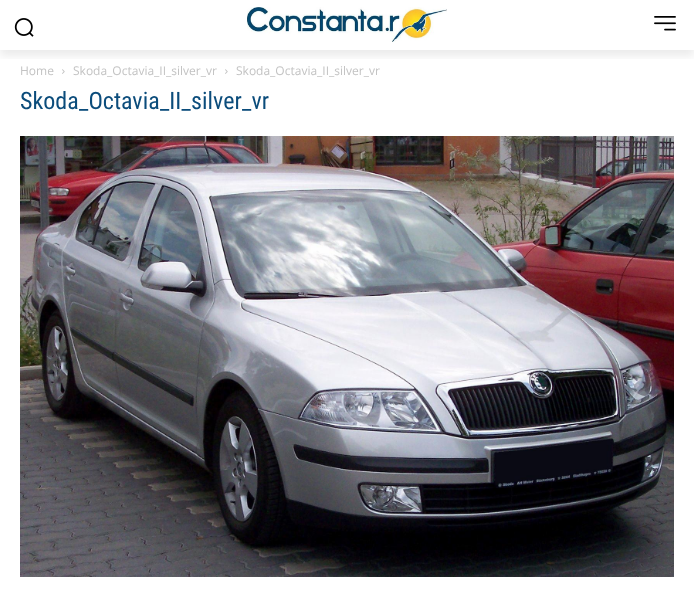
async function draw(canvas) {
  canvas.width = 694
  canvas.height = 600
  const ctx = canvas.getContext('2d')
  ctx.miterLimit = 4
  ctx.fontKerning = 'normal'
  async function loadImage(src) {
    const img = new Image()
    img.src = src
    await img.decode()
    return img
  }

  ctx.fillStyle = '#fff'
  ctx.fillRect(0, 0, 694, 600)
  ctx.drawImage(await loadImage('image0.png'), 14, 18, 20, 19)
  ctx.drawImage(await loadImage('image1.png'), 247, 7, 200, 35)
  ctx.drawImage(await loadImage('image2.png'), 654, 16, 22, 15)
  ctx.save()
  ctx.beginPath()
  ctx.rect(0, 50, 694, 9)
  ctx.clip()
  ctx.fillStyle = '#00000014'
  ctx.filter = 'blur(4px)'
  ctx.beginPath()
  ctx.rect(0, 6, 694, 50)
  ctx.fill()
  ctx.filter = 'none'
  ctx.restore()
  ctx.font = '12px Open Sans'
  ctx.fillStyle = '#c3c3c3'
  ctx.fillText('Home', 20, 75)
  ctx.drawImage(await loadImage('image3.png'), 62, 69, 3, 5)
  ctx.fillText('Skoda_Octavia_II_silver_vr', 73, 75)
  ctx.drawImage(await loadImage('image3.png'), 225, 69, 3, 5)
  ctx.fillText('Skoda_Octavia_II_silver_vr', 236, 75)
  ctx.font = '24px Roboto Condensed'
  ctx.fillStyle = '#0b4c7b'
  ctx.fillText('Skoda_Octavia_II_silver_vr', 20, 109)
  ctx.drawImage(await loadImage('image4.png'), 20, 136, 654, 441)
}

draw(document.querySelector('canvas'))
